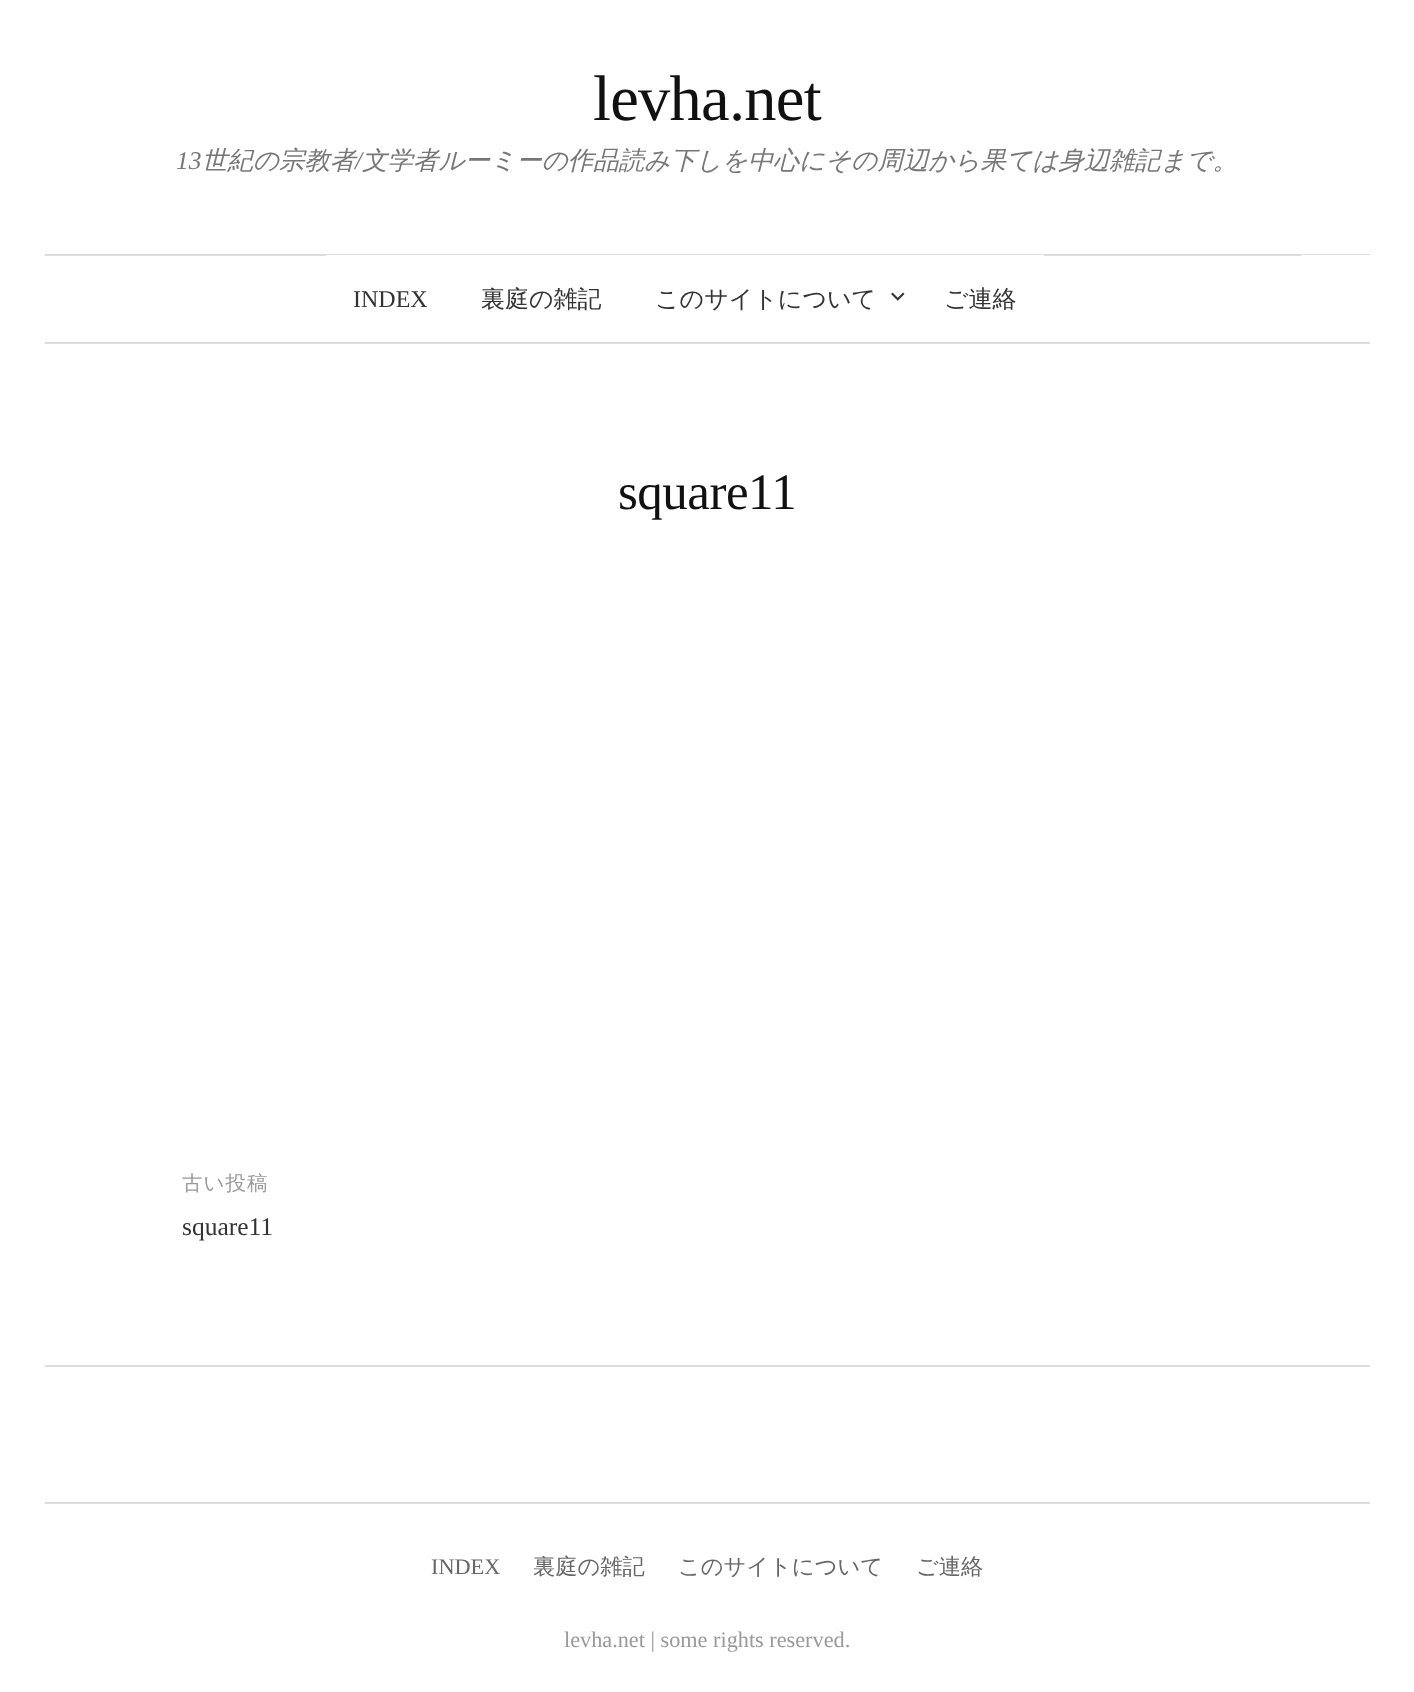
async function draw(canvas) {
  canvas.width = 1414
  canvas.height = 1692
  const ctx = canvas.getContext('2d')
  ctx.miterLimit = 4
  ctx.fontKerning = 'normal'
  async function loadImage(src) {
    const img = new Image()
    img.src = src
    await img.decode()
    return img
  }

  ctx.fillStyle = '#fff'
  ctx.fillRect(0, 0, 1414, 1692)
  ctx.letterSpacing = '-0.75px'
  ctx.font = '64.5px Liberation Serif'
  ctx.fillStyle = '#111'
  ctx.fillText('levha.net', 593, 120)
  ctx.letterSpacing = '0px'
  ctx.font = 'italic 25.5px Liberation Serif'
  ctx.fillStyle = '#777'
  ctx.fillText('13', 176, 169)
  ctx.font = 'italic 500 25.5px WenQuanYi Zen Hei'
  ctx.fillText('世紀の宗教者', 202, 169)
  ctx.font = 'italic 25.5px Liberation Serif'
  ctx.fillText('/', 355, 169)
  ctx.font = 'italic 500 25.5px WenQuanYi Zen Hei'
  ctx.fillText('文学者ルーミーの作品読み下しを中心にその周辺から果ては身辺雑記まで。', 362, 169)
  ctx.fillStyle = '#ddd'
  ctx.fillRect(45, 254, 1325, 2)
  ctx.fillRect(45, 342, 1325, 2)
  ctx.fillStyle = '#fff'
  ctx.fillRect(1301, 255, 69, 1)
  ctx.fillRect(326, 255, 718, 1)
  ctx.font = '24px Liberation Serif'
  ctx.fillStyle = '#333'
  ctx.fillText('INDEX', 353, 307)
  ctx.font = '500 24px WenQuanYi Zen Hei'
  ctx.fillText('裏庭の雑記', 481, 307)
  ctx.fillText('このサイトについて', 655, 307)
  ctx.drawImage(await loadImage('image0.png'), 891, 292, 14, 9)
  ctx.fillText('ご連絡', 944, 307)
  ctx.letterSpacing = '-0.5px'
  ctx.font = '51px Liberation Serif'
  ctx.fillStyle = '#111'
  ctx.fillText('square11', 618, 509)
  ctx.letterSpacing = '1px'
  ctx.font = '500 20.5px WenQuanYi Zen Hei'
  ctx.fillStyle = '#999'
  ctx.fillText('古い投稿', 182, 1190)
  ctx.letterSpacing = '0px'
  ctx.font = '25.5px Liberation Serif'
  ctx.fillStyle = '#333'
  ctx.fillText('square11', 182, 1235)
  ctx.fillStyle = '#ddd'
  ctx.fillRect(45, 1365, 1325, 2)
  ctx.fillRect(45, 1502, 1325, 2)
  ctx.font = '22.25px Liberation Serif'
  ctx.fillStyle = '#666'
  ctx.fillText('INDEX', 431, 1574)
  ctx.font = '500 22.25px WenQuanYi Zen Hei'
  ctx.fillText('裏庭の雑記', 533, 1574)
  ctx.fillText('このサイトについて', 678, 1574)
  ctx.fillText('ご連絡', 916, 1574)
  ctx.font = '22.25px Liberation Serif'
  ctx.fillStyle = '#999'
  ctx.fillText('levha.net | some rights reserved.', 564, 1647)
}

draw(document.querySelector('canvas'))
